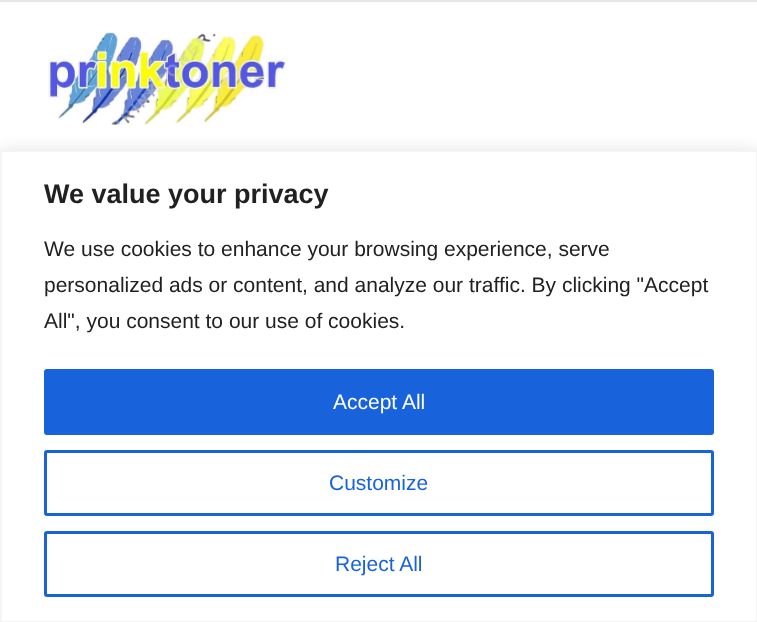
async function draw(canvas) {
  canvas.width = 757
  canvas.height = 622
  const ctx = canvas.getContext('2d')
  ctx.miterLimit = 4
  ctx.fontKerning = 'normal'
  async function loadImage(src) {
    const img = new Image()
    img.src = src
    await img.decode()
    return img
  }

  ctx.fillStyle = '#fff'
  ctx.fillRect(0, 0, 757, 622)
  ctx.fillStyle = '#e7e7e7'
  ctx.fillRect(0, 0, 757, 2)
  ctx.drawImage(await loadImage('image0.png'), 48, 31, 238, 94)
  ctx.fillStyle = '#acabab4d'
  ctx.filter = 'blur(7.5px)'
  ctx.beginPath()
  ctx.rect(0, 149, 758, 472)
  ctx.fill()
  ctx.filter = 'none'
  ctx.fillStyle = '#fff'
  ctx.beginPath()
  ctx.rect(1, 151, 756, 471)
  ctx.fill()
  ctx.strokeStyle = '#f4f4f4'
  ctx.lineWidth = 2
  ctx.stroke()
  ctx.font = 'bold 27px Liberation Sans'
  ctx.fillStyle = '#212121'
  ctx.fillText('We value your privacy', 44, 203)
  ctx.font = '21px Liberation Sans'
  ctx.fillText('We use cookies to enhance your browsing experience, serve', 44, 256)
  ctx.fillText('personalized ads or content, and analyze our traffic. By clicking "Accept', 44, 292)
  ctx.fillText('All", you consent to our use of cookies.', 44, 328)
  ctx.fillStyle = '#1863dc'
  ctx.beginPath()
  ctx.roundRect(45.5, 370.5, 667, 63, 1.5)
  ctx.fill()
  ctx.strokeStyle = '#1863dc'
  ctx.lineWidth = 3
  ctx.stroke()
  ctx.fillStyle = '#fff'
  ctx.fillText('Accept All', 333, 409)
  ctx.beginPath()
  ctx.roundRect(45.5, 451.5, 667, 63, 1.5)
  ctx.stroke()
  ctx.fillStyle = '#1863dc'
  ctx.fillText('Customize', 329, 490)
  ctx.beginPath()
  ctx.roundRect(45.5, 532.5, 667, 63, 1.5)
  ctx.stroke()
  ctx.fillText('Reject All', 335, 571)
}

draw(document.querySelector('canvas'))
